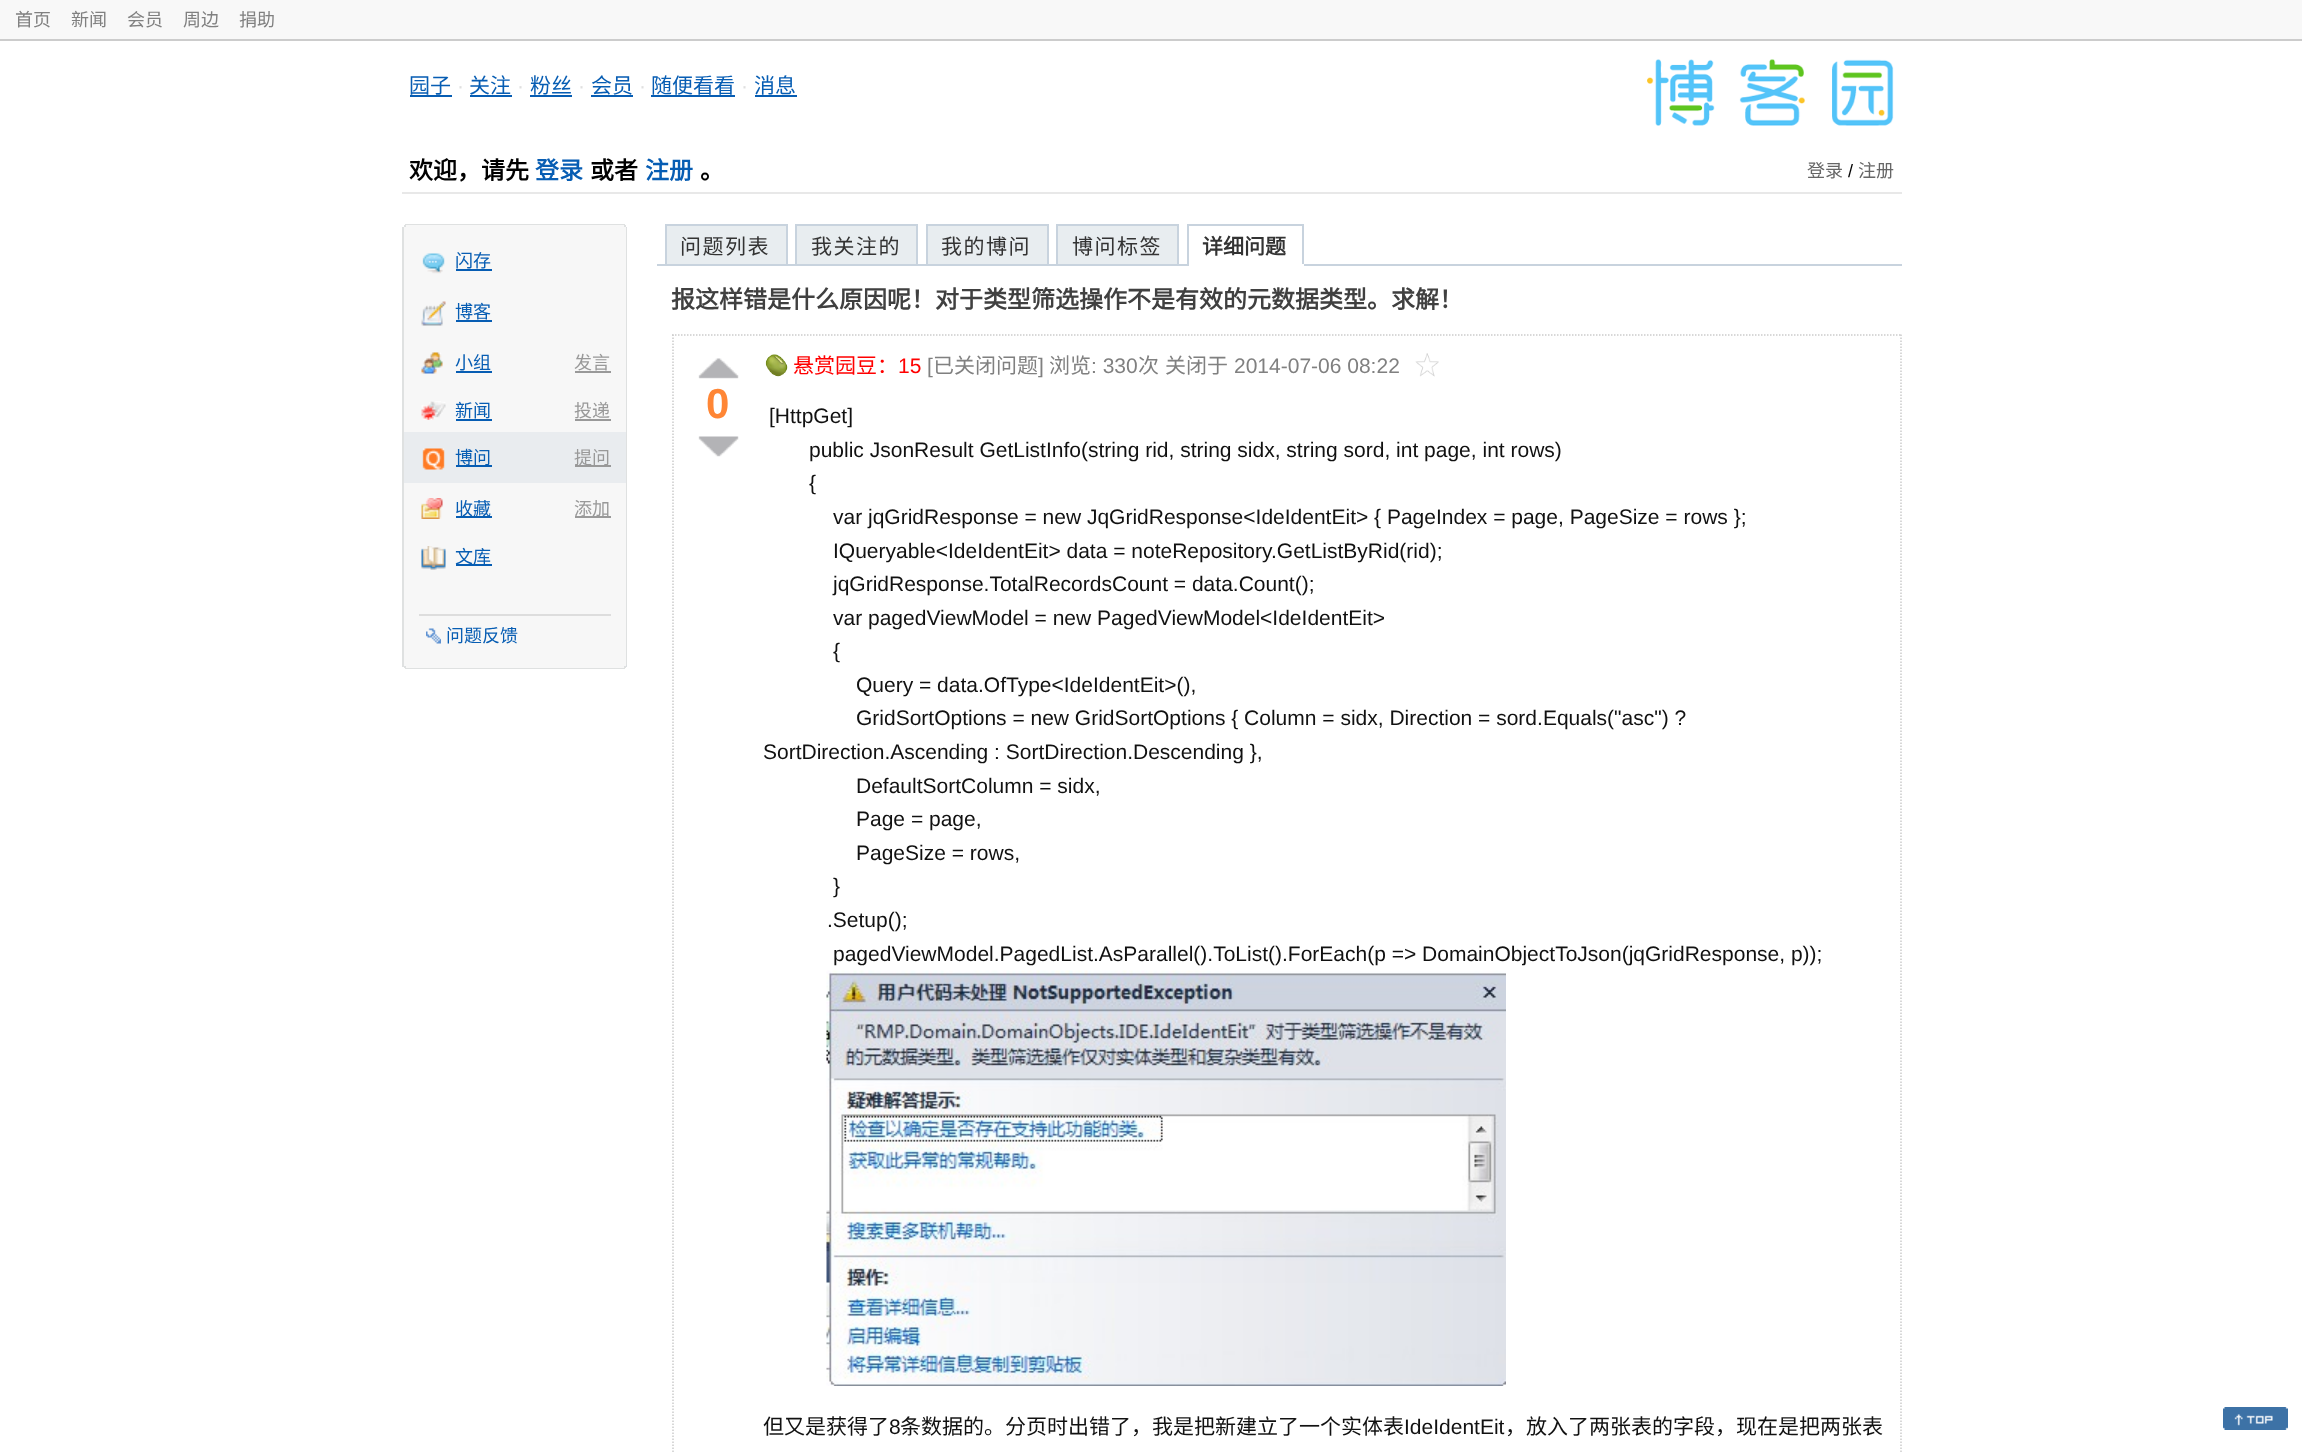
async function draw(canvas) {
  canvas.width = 2302
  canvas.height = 1452
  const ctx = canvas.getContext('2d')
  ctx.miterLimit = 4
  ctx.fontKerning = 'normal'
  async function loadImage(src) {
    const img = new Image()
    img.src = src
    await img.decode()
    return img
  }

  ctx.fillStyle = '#fff'
  ctx.fillRect(0, 0, 2302, 1452)
  ctx.fillStyle = '#f8f8f8'
  ctx.fillRect(0, 0, 2302, 39)
  ctx.fillStyle = '#ccc'
  ctx.fillRect(0, 39, 2302, 2)
  ctx.font = '18px Noto Sans CJK SC'
  ctx.fillStyle = '#808080'
  ctx.fillText('首页', 15, 26)
  ctx.fillText('新闻', 71, 26)
  ctx.fillText('会员', 127, 26)
  ctx.fillText('周边', 183, 26)
  ctx.fillText('捐助', 239, 26)
  ctx.fillStyle = '#e8e8e8'
  ctx.fillRect(402, 192, 1500, 2)
  ctx.font = '21px Noto Sans CJK SC'
  ctx.fillStyle = '#075db3'
  ctx.fillText('园子', 409, 93)
  ctx.fillRect(410, 95, 42, 2)
  ctx.font = '21px Liberation Sans'
  ctx.fillStyle = '#dfdfdf'
  ctx.fillText('·', 457, 93)
  ctx.font = '21px Noto Sans CJK SC'
  ctx.fillStyle = '#075db3'
  ctx.fillText('关注', 469, 93)
  ctx.fillRect(470, 95, 42, 2)
  ctx.font = '21px Liberation Sans'
  ctx.fillStyle = '#dfdfdf'
  ctx.fillText('·', 517, 93)
  ctx.font = '21px Noto Sans CJK SC'
  ctx.fillStyle = '#075db3'
  ctx.fillText('粉丝', 530, 93)
  ctx.fillRect(530, 95, 42, 2)
  ctx.font = '21px Liberation Sans'
  ctx.fillStyle = '#dfdfdf'
  ctx.fillText('·', 578, 93)
  ctx.font = '21px Noto Sans CJK SC'
  ctx.fillStyle = '#075db3'
  ctx.fillText('会员', 591, 93)
  ctx.fillRect(591, 95, 42, 2)
  ctx.font = '21px Liberation Sans'
  ctx.fillStyle = '#dfdfdf'
  ctx.fillText('·', 639, 93)
  ctx.font = '21px Noto Sans CJK SC'
  ctx.fillStyle = '#075db3'
  ctx.fillText('随便看看', 651, 93)
  ctx.fillRect(651, 95, 84, 2)
  ctx.font = '21px Liberation Sans'
  ctx.fillStyle = '#dfdfdf'
  ctx.fillText('·', 741, 93)
  ctx.font = '21px Noto Sans CJK SC'
  ctx.fillStyle = '#075db3'
  ctx.fillText('消息', 754, 93)
  ctx.fillRect(755, 95, 42, 2)
  ctx.drawImage(await loadImage('image0.png'), 1647, 59, 247, 67)
  ctx.font = 'bold 24px Noto Sans CJK SC'
  ctx.fillStyle = '#000'
  ctx.fillText('欢迎，请先', 409, 179)
  ctx.fillStyle = '#075db3'
  ctx.fillText('登录', 535, 179)
  ctx.fillStyle = '#000'
  ctx.fillText('或者', 590, 179)
  ctx.fillStyle = '#075db3'
  ctx.fillText('注册', 645, 179)
  ctx.fillStyle = '#000'
  ctx.fillText('。', 700, 179)
  ctx.font = '18px Noto Sans CJK SC'
  ctx.fillStyle = '#666'
  ctx.fillText('登录', 1807, 177)
  ctx.font = '18px Liberation Sans'
  ctx.fillStyle = '#000'
  ctx.fillText('/', 1848, 177)
  ctx.font = '18px Noto Sans CJK SC'
  ctx.fillStyle = '#666'
  ctx.fillText('注册', 1858, 177)
  ctx.fillStyle = '#dfe1e1'
  ctx.fillRect(405, 224, 220, 1)
  ctx.fillStyle = '#f7f7f7'
  ctx.fillRect(404, 225, 222, 2)
  ctx.fillStyle = '#dfe1e1'
  ctx.fillRect(624, 225, 2, 2)
  ctx.fillRect(404, 225, 2, 2)
  ctx.fillStyle = '#f7f7f7'
  ctx.fillRect(402, 227, 225, 1)
  ctx.fillStyle = '#dbdee2'
  ctx.fillRect(626, 227, 1, 2)
  ctx.fillStyle = '#dfe1e1'
  ctx.fillRect(402, 227, 2, 438)
  ctx.fillStyle = '#f7f7f7'
  ctx.fillRect(404, 228, 222, 437)
  ctx.fillStyle = '#dfe1e1'
  ctx.fillRect(626, 228, 1, 437)
  ctx.drawImage(await loadImage('image1.png'), 422, 253, 23, 21)
  ctx.fillStyle = '#075db3'
  ctx.fillText('闪存', 455, 267)
  ctx.fillRect(456, 269, 36, 2)
  ctx.drawImage(await loadImage('image2.png'), 421, 301, 25, 25)
  ctx.fillText('博客', 455, 318)
  ctx.fillRect(456, 320, 36, 2)
  ctx.drawImage(await loadImage('image3.png'), 421, 352, 22, 22)
  ctx.fillText('小组', 455, 369)
  ctx.fillRect(456, 371, 36, 2)
  ctx.fillStyle = '#999'
  ctx.fillText('发言', 574, 369)
  ctx.fillRect(575, 371, 36, 2)
  ctx.drawImage(await loadImage('image4.png'), 421, 401, 25, 19)
  ctx.fillStyle = '#075db3'
  ctx.fillText('新闻', 455, 417)
  ctx.fillRect(456, 419, 36, 2)
  ctx.fillStyle = '#999'
  ctx.fillText('投递', 574, 417)
  ctx.fillRect(575, 419, 36, 2)
  ctx.fillStyle = '#e9ecef'
  ctx.fillRect(404, 432, 222, 51)
  ctx.drawImage(await loadImage('image5.png'), 422, 448, 23, 22)
  ctx.fillStyle = '#075db3'
  ctx.fillRect(456, 465, 36, 2)
  ctx.fillText('博问', 455, 464)
  ctx.fillStyle = '#999'
  ctx.fillRect(575, 465, 36, 2)
  ctx.fillText('提问', 574, 464)
  ctx.drawImage(await loadImage('image6.png'), 421, 498, 22, 21)
  ctx.fillStyle = '#075db3'
  ctx.fillRect(456, 516, 36, 2)
  ctx.fillText('收藏', 455, 515)
  ctx.fillStyle = '#999'
  ctx.fillRect(575, 516, 36, 2)
  ctx.fillText('添加', 574, 515)
  ctx.drawImage(await loadImage('image7.png'), 421, 546, 25, 24)
  ctx.fillStyle = '#075db3'
  ctx.fillRect(456, 564, 36, 2)
  ctx.fillText('文库', 455, 563)
  ctx.fillStyle = '#ddd'
  ctx.fillRect(419, 614, 192, 2)
  ctx.drawImage(await loadImage('image8.png'), 426, 628, 15, 16)
  ctx.fillStyle = '#075db3'
  ctx.fillText('问题反馈', 446, 642)
  ctx.fillStyle = '#f7f7f7'
  ctx.fillRect(402, 665, 225, 1)
  ctx.fillStyle = '#dbdee2'
  ctx.fillRect(626, 665, 1, 2)
  ctx.fillStyle = '#dfe1e1'
  ctx.fillRect(402, 665, 2, 2)
  ctx.fillStyle = '#f7f7f7'
  ctx.fillRect(404, 666, 222, 2)
  ctx.fillStyle = '#dfe1e1'
  ctx.fillRect(624, 666, 2, 2)
  ctx.fillRect(404, 666, 2, 2)
  ctx.fillRect(405, 668, 220, 1)
  ctx.fillStyle = '#c8d3de'
  ctx.fillRect(657, 264, 1245, 2)
  ctx.fillStyle = '#e8edf0'
  ctx.beginPath()
  ctx.rect(666, 225, 121, 40)
  ctx.fill()
  ctx.strokeStyle = '#c8d3de'
  ctx.lineWidth = 2
  ctx.stroke()
  ctx.letterSpacing = '1.5px'
  ctx.font = '21px Noto Sans CJK SC'
  ctx.fillStyle = '#333'
  ctx.fillText('问题列表', 680, 254)
  ctx.fillStyle = '#e8edf0'
  ctx.beginPath()
  ctx.rect(796, 225, 121, 40)
  ctx.fill()
  ctx.stroke()
  ctx.fillStyle = '#333'
  ctx.fillText('我关注的', 811, 254)
  ctx.fillStyle = '#e8edf0'
  ctx.beginPath()
  ctx.rect(927, 225, 121, 40)
  ctx.fill()
  ctx.stroke()
  ctx.fillStyle = '#333'
  ctx.fillText('我的博问', 941, 254)
  ctx.fillStyle = '#e8edf0'
  ctx.beginPath()
  ctx.rect(1057, 225, 121, 40)
  ctx.fill()
  ctx.stroke()
  ctx.fillStyle = '#333'
  ctx.fillText('博问标签', 1072, 254)
  ctx.fillStyle = '#c8d3de'
  ctx.fillRect(1187, 224, 117, 2)
  ctx.fillRect(1302, 224, 2, 42)
  ctx.fillStyle = '#fff'
  ctx.fillRect(1187, 264, 117, 2)
  ctx.fillStyle = '#c8d3de'
  ctx.fillRect(1187, 224, 2, 42)
  ctx.letterSpacing = '0px'
  ctx.font = 'bold 21px Noto Sans CJK SC'
  ctx.fillStyle = '#333'
  ctx.fillText('详细问题', 1202, 254)
  ctx.font = 'bold 24px Noto Sans CJK SC'
  ctx.fillStyle = '#404040'
  ctx.fillText('报这样错是什么原因呢！对于类型筛选操作不是有效的元数据类型。求解！', 671, 308)
  ctx.beginPath()
  ctx.moveTo(672, 335)
  ctx.lineTo(1902, 335)
  ctx.strokeStyle = '#ccc'
  ctx.lineWidth = 1.5
  ctx.setLineDash([1.5, 1.5])
  ctx.stroke()
  ctx.beginPath()
  ctx.moveTo(1901, 334.5)
  ctx.lineTo(1901, 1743)
  ctx.stroke()
  ctx.beginPath()
  ctx.moveTo(673, 334.5)
  ctx.lineTo(673, 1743)
  ctx.stroke()
  ctx.drawImage(await loadImage('image9.png'), 698, 358, 41, 21)
  ctx.font = 'bold 42px Liberation Sans'
  ctx.fillStyle = '#ff8635'
  ctx.fillText('0', 706, 418)
  ctx.drawImage(await loadImage('image10.png'), 698, 436, 41, 21)
  ctx.drawImage(await loadImage('image11.png'), 765, 354, 23, 23)
  ctx.font = '21px Noto Sans CJK SC'
  ctx.fillStyle = '#f00'
  ctx.fillText('悬赏园豆：', 793, 373)
  ctx.font = '21px Liberation Sans'
  ctx.fillText('15', 898, 373)
  ctx.fillStyle = '#808080'
  ctx.fillText('[', 927, 373)
  ctx.font = '21px Noto Sans CJK SC'
  ctx.fillText('已关闭问题', 933, 373)
  ctx.font = '21px Liberation Sans'
  ctx.fillText(']', 1038, 373)
  ctx.font = '21px Noto Sans CJK SC'
  ctx.fillText('浏览', 1049, 373)
  ctx.font = '21px Liberation Sans'
  ctx.fillText(': 330', 1091, 373)
  ctx.font = '21px Noto Sans CJK SC'
  ctx.fillText('次', 1138, 373)
  ctx.fillText('关闭于', 1165, 373)
  ctx.font = '21px Liberation Sans'
  ctx.fillText('2014-07-06 08:22', 1234, 373)
  ctx.drawImage(await loadImage('image12.png'), 1415, 353, 24, 24)
  ctx.fillStyle = '#111'
  ctx.fillText('[HttpGet]', 769, 423)
  ctx.fillText('public JsonResult GetListInfo(string rid, string sidx, string sord, int page, int rows)', 809, 457)
  ctx.fillText('{', 809, 490)
  ctx.fillText('var jqGridResponse = new JqGridResponse<IdeIdentEit> { PageIndex = page, PageSize = rows };', 833, 524)
  ctx.fillText('IQueryable<IdeIdentEit> data = noteRepository.GetListByRid(rid);', 833, 558)
  ctx.fillText('jqGridResponse.TotalRecordsCount = data.Count();', 833, 591)
  ctx.fillText('var pagedViewModel = new PagedViewModel<IdeIdentEit>', 833, 625)
  ctx.fillText('{', 833, 658)
  ctx.fillText('Query = data.OfType<IdeIdentEit>(),', 856, 692)
  ctx.fillText('GridSortOptions = new GridSortOptions { Column = sidx, Direction = sord.Equals("asc") ?', 856, 725)
  ctx.fillText('SortDirection.Ascending : SortDirection.Descending },', 763, 759)
  ctx.fillText('DefaultSortColumn = sidx,', 856, 793)
  ctx.fillText('Page = page,', 856, 826)
  ctx.fillText('PageSize = rows,', 856, 860)
  ctx.fillText('}', 833, 893)
  ctx.fillText('.Setup();', 827, 927)
  ctx.fillText('pagedViewModel.PagedList.AsParallel().ToList().ForEach(p => DomainObjectToJson(jqGridResponse, p));', 833, 961)
  ctx.drawImage(await loadImage('image13.png'), 826, 970, 680, 416)
  ctx.font = '21px Noto Sans CJK SC'
  ctx.fillText('但又是获得了', 763, 1434)
  ctx.font = '21px Liberation Sans'
  ctx.fillText('8', 889, 1434)
  ctx.font = '21px Noto Sans CJK SC'
  ctx.fillText('条数据的。分页时出错了，我是把新建立了一个实体表', 900, 1434)
  ctx.font = '21px Liberation Sans'
  ctx.fillText('IdeIdentEit', 1404, 1434)
  ctx.font = '21px Noto Sans CJK SC'
  ctx.fillText('，放入了两张表的字段，现在是把两张表', 1505, 1434)
  ctx.drawImage(await loadImage('image14.png'), 2223, 1407, 65, 23)
}

draw(document.querySelector('canvas'))
